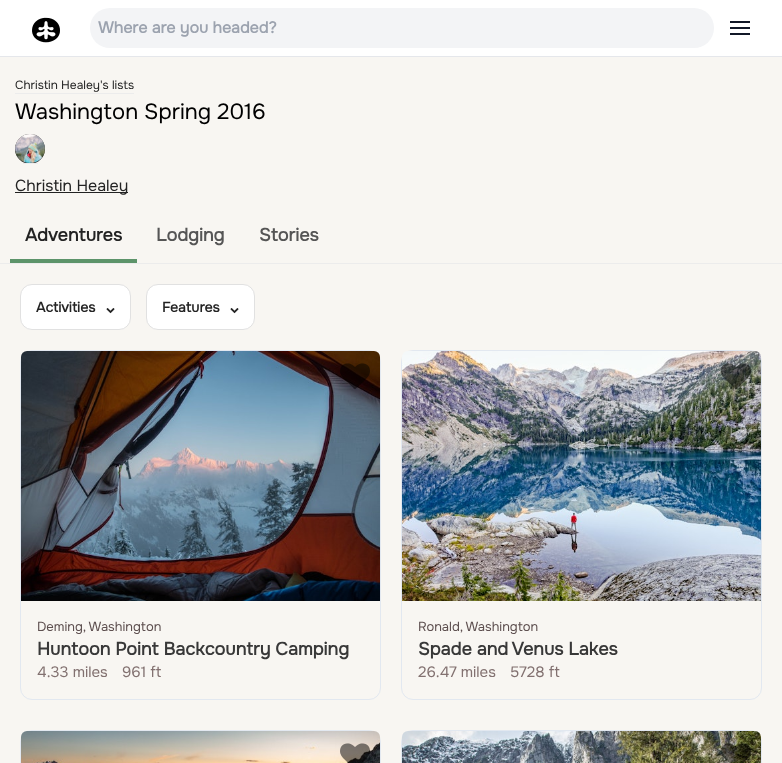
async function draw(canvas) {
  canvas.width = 782
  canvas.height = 763
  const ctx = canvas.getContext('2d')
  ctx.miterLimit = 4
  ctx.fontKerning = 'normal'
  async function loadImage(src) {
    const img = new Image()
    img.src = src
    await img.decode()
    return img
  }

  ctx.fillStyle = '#f8f6f2'
  ctx.fillRect(0, 0, 782, 763)
  ctx.fillStyle = '#fff'
  ctx.fillRect(0, 0, 782, 56)
  ctx.fillStyle = '#e5e7eb'
  ctx.fillRect(0, 56, 782, 1)
  ctx.drawImage(await loadImage('image0.png'), 32, 17, 28, 26)
  ctx.fillStyle = '#f3f4f6'
  ctx.beginPath()
  ctx.roundRect(90, 8, 624, 40, 20)
  ctx.fill()
  ctx.font = 'bold 16px Onest'
  ctx.fillStyle = '#9ca3af'
  ctx.fillText('Where are you headed?', 98, 33)
  ctx.drawImage(await loadImage('image1.png'), 730, 21, 20, 14)
  ctx.font = '12px Onest'
  ctx.fillStyle = '#232323'
  ctx.fillText('Christin Healey\'s lists', 15, 89)
  ctx.fillStyle = '#ececec'
  ctx.fillRect(15, 93, 119, 1)
  ctx.font = '22px Onest'
  ctx.fillStyle = '#000'
  ctx.fillText('Washington Spring 2016', 15, 119)
  ctx.fillStyle = '#333'
  ctx.beginPath()
  ctx.arc(30, 149, 15, 0, 2 * Math.PI)
  ctx.fill()
  ctx.fillStyle = '#ececec'
  ctx.fillRect(23, 163, 15, 1)
  ctx.drawImage(await loadImage('image2.png'), 15, 134, 30, 29)
  ctx.fillStyle = '#232323'
  ctx.fillRect(15, 192, 113, 1)
  ctx.font = '16px Onest'
  ctx.fillText('Christin Healey', 15, 191)
  ctx.fillStyle = '#ececec'
  ctx.fillRect(0, 263, 782, 1)
  ctx.fillStyle = '#5d946a'
  ctx.fillRect(10, 259, 127, 4)
  ctx.font = 'bold 18px Onest'
  ctx.fillStyle = '#232323'
  ctx.fillText('Adventures', 25, 241)
  ctx.fillStyle = '#555'
  ctx.fillText('Lodging', 156, 241)
  ctx.fillText('Stories', 259, 241)
  ctx.fillStyle = '#fff'
  ctx.beginPath()
  ctx.roundRect(20.5, 284.5, 110, 45, 11.5)
  ctx.fill()
  ctx.strokeStyle = '#e1e1e1'
  ctx.stroke()
  ctx.font = 'bold 14px Onest'
  ctx.fillStyle = '#232323'
  ctx.fillText('Activities', 36, 312)
  ctx.drawImage(await loadImage('image3.png'), 106, 308, 9, 6)
  ctx.fillStyle = '#fff'
  ctx.beginPath()
  ctx.roundRect(146.5, 284.5, 108, 45, 11.5)
  ctx.fill()
  ctx.stroke()
  ctx.fillStyle = '#232323'
  ctx.fillText('Features', 162, 312)
  ctx.drawImage(await loadImage('image3.png'), 230, 308, 9, 6)
  ctx.beginPath()
  ctx.roundRect(20.5, 350.5, 360, 349, 11.5)
  ctx.strokeStyle = '#e2e8f0'
  ctx.stroke()
  ctx.drawImage(await loadImage('image4.png'), 21, 351, 359, 250)
  ctx.drawImage(await loadImage('image5.png'), 340, 363, 30, 26)
  ctx.font = '13px Onest'
  ctx.fillStyle = '#5e5050'
  ctx.fillText('Deming, Washington', 37, 631)
  ctx.font = 'bold 18px Onest'
  ctx.fillStyle = '#383838'
  ctx.fillText('Huntoon Point Backcountry Camping', 37, 655)
  ctx.font = '15px Onest'
  ctx.fillStyle = '#827170'
  ctx.fillText('4.33 miles', 37, 677)
  ctx.fillText('961 ft', 122, 677)
  ctx.beginPath()
  ctx.roundRect(401.5, 350.5, 360, 349, 11.5)
  ctx.stroke()
  ctx.drawImage(await loadImage('image6.png'), 402, 351, 359, 250)
  ctx.drawImage(await loadImage('image7.png'), 721, 363, 30, 26)
  ctx.font = '13px Onest'
  ctx.fillStyle = '#5e5050'
  ctx.fillText('Ronald, Washington', 418, 631)
  ctx.font = 'bold 18px Onest'
  ctx.fillStyle = '#383838'
  ctx.fillText('Spade and Venus Lakes', 418, 655)
  ctx.font = '15px Onest'
  ctx.fillStyle = '#827170'
  ctx.fillText('26.47 miles', 418, 677)
  ctx.fillText('5728 ft', 510, 677)
  ctx.beginPath()
  ctx.roundRect(20.5, 730.5, 360, 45, 11.5)
  ctx.stroke()
  ctx.drawImage(await loadImage('image8.png'), 21, 731, 359, 32)
  ctx.drawImage(await loadImage('image9.png'), 340, 743, 30, 20)
  ctx.beginPath()
  ctx.roundRect(401.5, 730.5, 360, 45, 11.5)
  ctx.stroke()
  ctx.drawImage(await loadImage('image10.png'), 402, 731, 359, 32)
  ctx.drawImage(await loadImage('image11.png'), 721, 743, 30, 20)
}

draw(document.querySelector('canvas'))
